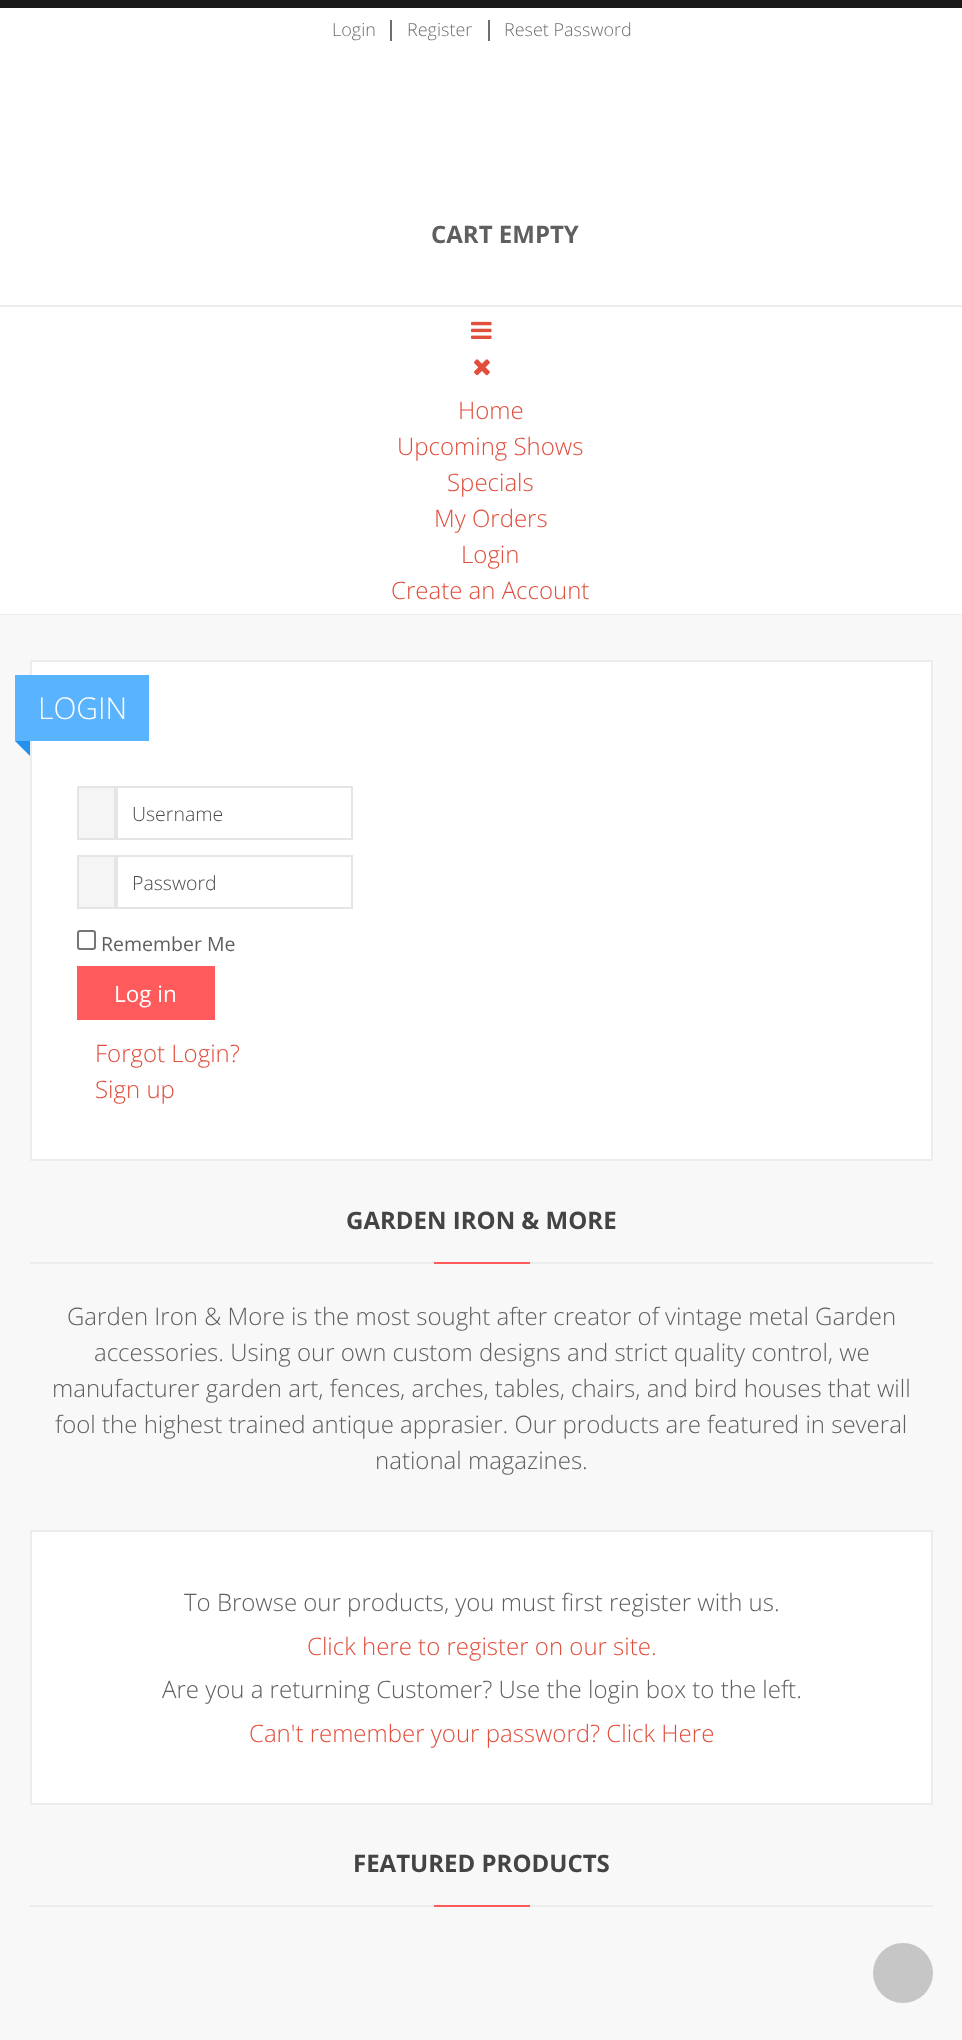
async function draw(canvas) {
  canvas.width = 962
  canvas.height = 2040
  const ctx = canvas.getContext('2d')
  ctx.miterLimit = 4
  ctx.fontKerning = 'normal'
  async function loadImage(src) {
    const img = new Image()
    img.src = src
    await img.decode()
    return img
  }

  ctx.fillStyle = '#191919'
  ctx.fillRect(0, 0, 962, 2040)
  ctx.fillStyle = '#fff'
  ctx.fillRect(0, 8, 962, 606)
  ctx.font = '300 18px Open Sans'
  ctx.fillStyle = '#6f6e6e'
  ctx.fillText('Login', 332, 36)
  ctx.fillRect(390, 20, 2, 21)
  ctx.fillText('Register', 407, 36)
  ctx.fillRect(488, 20, 2, 21)
  ctx.fillText('Reset Password', 504, 36)
  ctx.font = 'bold 24px Open Sans'
  ctx.fillStyle = '#5f5f5f'
  ctx.fillText('CART EMPTY', 431, 243)
  ctx.fillStyle = '#ececec'
  ctx.fillRect(0, 614, 962, 1)
  ctx.fillRect(0, 305, 962, 2)
  ctx.drawImage(await loadImage('image0.png'), 471, 321, 21, 18)
  ctx.drawImage(await loadImage('image1.png'), 474, 359, 16, 17)
  ctx.font = '300 24px Open Sans'
  ctx.fillStyle = '#e14e3c'
  ctx.fillText('Home', 458, 419)
  ctx.fillText('Upcoming Shows', 397, 455)
  ctx.fillText('Specials', 447, 491)
  ctx.fillText('My Orders', 434, 527)
  ctx.fillText('Login', 461, 563)
  ctx.fillText('Create an Account', 391, 599)
  ctx.fillStyle = '#f8f8f8'
  ctx.fillRect(0, 615, 962, 1425)
  ctx.fillStyle = '#fff'
  ctx.beginPath()
  ctx.rect(31, 661, 901, 499)
  ctx.fill()
  ctx.strokeStyle = '#ececec'
  ctx.lineWidth = 2
  ctx.stroke()
  ctx.fillStyle = '#5ab3ff'
  ctx.fillRect(15, 675, 134, 66)
  ctx.font = '300 30px Open Sans'
  ctx.fillStyle = '#fff'
  ctx.fillText('LOGIN', 38, 719)
  ctx.fillStyle = '#2491ee'
  ctx.beginPath()
  ctx.moveTo(15, 741)
  ctx.lineTo(30, 741)
  ctx.lineTo(30, 756)
  ctx.closePath()
  ctx.fill()
  ctx.fillStyle = '#f5f5f5'
  ctx.beginPath()
  ctx.rect(78, 787, 37, 52)
  ctx.fill()
  ctx.strokeStyle = '#e5e5e5'
  ctx.stroke()
  ctx.strokeRect(117, 787, 235, 52)
  ctx.font = '300 19.5px Open Sans'
  ctx.fillStyle = '#4b4b4b'
  ctx.fillText('Username', 132, 821)
  ctx.fillStyle = '#f5f5f5'
  ctx.beginPath()
  ctx.rect(78, 856, 37, 52)
  ctx.fill()
  ctx.stroke()
  ctx.strokeRect(117, 856, 235, 52)
  ctx.fillStyle = '#4b4b4b'
  ctx.fillText('Password', 132, 890)
  ctx.beginPath()
  ctx.roundRect(78, 931, 17, 18, 2)
  ctx.strokeStyle = '#767676'
  ctx.stroke()
  ctx.font = '19.5px Open Sans'
  ctx.fillStyle = '#5f5f5f'
  ctx.fillText('Remember Me', 101, 951)
  ctx.fillStyle = '#ff5a5c'
  ctx.fillRect(77, 966, 138, 54)
  ctx.font = '22.5px Open Sans'
  ctx.fillStyle = '#fff'
  ctx.fillText('Log in', 114, 1002)
  ctx.font = '300 24px Open Sans'
  ctx.fillStyle = '#e14e3c'
  ctx.fillText('Forgot Login?', 95, 1062)
  ctx.fillText('Sign up', 95, 1098)
  ctx.fillStyle = '#ececec'
  ctx.fillRect(30, 1262, 903, 2)
  ctx.font = 'bold 24px Open Sans'
  ctx.fillStyle = '#444'
  ctx.fillText('GARDEN IRON & MORE', 346, 1229)
  ctx.fillStyle = '#ff5a5c'
  ctx.fillRect(434, 1262, 96, 2)
  ctx.font = '300 24px Open Sans'
  ctx.fillStyle = '#5f5f5f'
  ctx.fillText('Garden Iron & More is the most sought after creator of vintage metal Garden', 67, 1325)
  ctx.fillText('accessories. Using our own custom designs and strict quality control, we', 94, 1361)
  ctx.fillText('manufacturer garden art, fences, arches, tables, chairs, and bird houses that will', 52, 1397)
  ctx.fillText('fool the highest trained antique apprasier. Our products are featured in several', 55, 1433)
  ctx.fillText('national magazines.', 375, 1469)
  ctx.fillStyle = '#fff'
  ctx.beginPath()
  ctx.rect(31, 1531, 901, 273)
  ctx.fill()
  ctx.strokeStyle = '#ececec'
  ctx.stroke()
  ctx.fillStyle = '#5f5f5f'
  ctx.fillText('To Browse our products, you must first register with us.', 184, 1611)
  ctx.fillStyle = '#e14e3c'
  ctx.fillText('Click here to register on our site.', 307, 1655)
  ctx.fillStyle = '#5f5f5f'
  ctx.fillText('Are you a returning Customer? Use the login box to the left.', 162, 1698)
  ctx.fillStyle = '#e14e3c'
  ctx.fillText('Can\'t remember your password? Click Here', 249, 1742)
  ctx.fillStyle = '#ececec'
  ctx.fillRect(30, 1905, 903, 2)
  ctx.font = 'bold 24px Open Sans'
  ctx.fillStyle = '#444'
  ctx.fillText('FEATURED PRODUCTS', 353, 1872)
  ctx.fillStyle = '#ff5a5c'
  ctx.fillRect(434, 1905, 96, 2)
  ctx.fillStyle = '#c6c6c6'
  ctx.beginPath()
  ctx.arc(903, 1973, 30, 0, 2 * Math.PI)
  ctx.fill()
}

draw(document.querySelector('canvas'))
